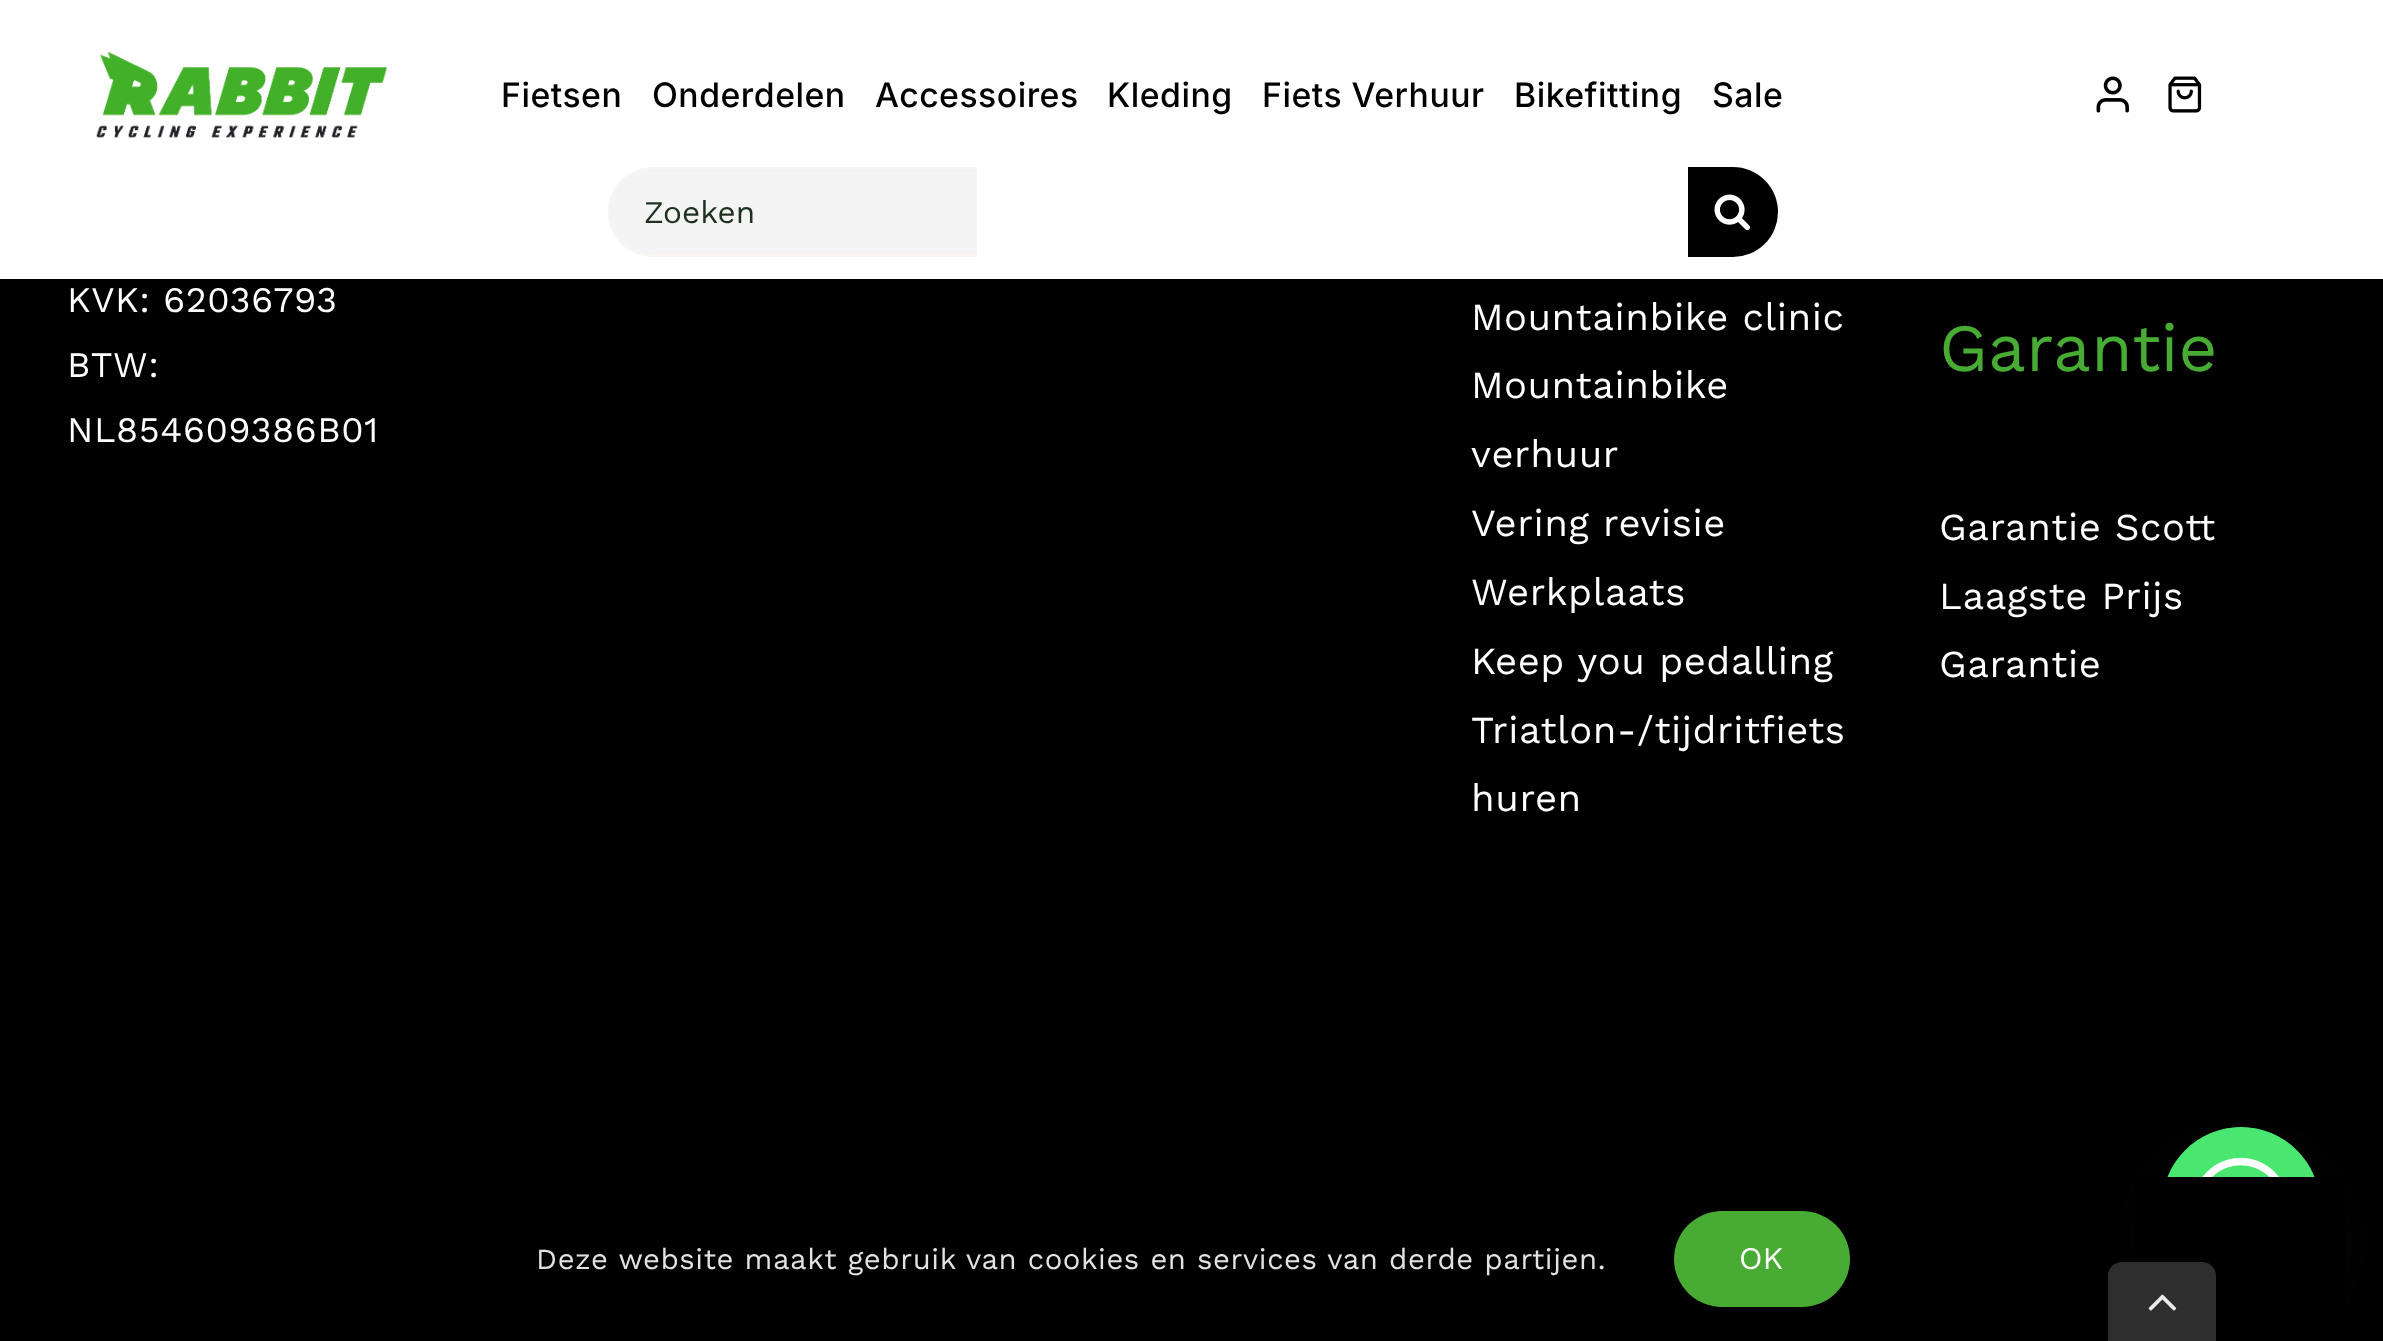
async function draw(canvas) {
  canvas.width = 2383
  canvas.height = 1341
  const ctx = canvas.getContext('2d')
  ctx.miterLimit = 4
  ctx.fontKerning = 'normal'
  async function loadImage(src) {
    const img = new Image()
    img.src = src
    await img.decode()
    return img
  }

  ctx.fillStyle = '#000'
  ctx.fillRect(0, 0, 2383, 1341)
  ctx.fillStyle = '#fff'
  ctx.fillRect(0, 0, 2383, 279)
  ctx.drawImage(await loadImage('image0.png'), 96, 51, 291, 87)
  ctx.letterSpacing = '0.5px'
  ctx.font = '500 33.75px Inter'
  ctx.fillStyle = '#000'
  ctx.fillText('Fietsen', 501, 107)
  ctx.fillText('Onderdelen', 652, 107)
  ctx.fillText('Accessoires', 875, 107)
  ctx.fillText('Kleding', 1107, 107)
  ctx.fillText('Fiets Verhuur', 1262, 107)
  ctx.fillText('Bikefitting', 1514, 107)
  ctx.fillText('Sale', 1712, 107)
  ctx.drawImage(await loadImage('image1.png'), 2096, 76, 33, 37)
  ctx.drawImage(await loadImage('image2.png'), 2168, 76, 34, 37)
  ctx.fillStyle = '#f3f4f3'
  ctx.beginPath()
  ctx.roundRect(608, 167, 369, 90, [45, 0, 0, 45])
  ctx.fill()
  ctx.fillStyle = '#f8f5f2'
  ctx.beginPath()
  ctx.moveTo(652, 169)
  ctx.lineTo(976, 169)
  ctx.lineTo(976, 167)
  ctx.lineTo(653, 167)
  ctx.bezierCurveTo(628, 167, 608, 187, 608, 212)
  ctx.bezierCurveTo(608, 236, 628, 256, 652, 256)
  ctx.lineTo(976, 256)
  ctx.lineTo(976, 254)
  ctx.lineTo(652, 254)
  ctx.bezierCurveTo(629, 254, 610, 235, 610, 212)
  ctx.bezierCurveTo(610, 188, 629, 169, 652, 169)
  ctx.closePath()
  ctx.fill()
  ctx.letterSpacing = '0px'
  ctx.font = '31.5px Work Sans'
  ctx.fillStyle = '#1e3120'
  ctx.fillText('Zoeken', 644, 223)
  ctx.fillStyle = '#000'
  ctx.beginPath()
  ctx.roundRect(1688, 167, 90, 90, [0, 45, 45, 0])
  ctx.fill()
  ctx.drawImage(await loadImage('image3.png'), 1714, 194, 36, 37)
  ctx.letterSpacing = '0.57px'
  ctx.font = '36px Work Sans'
  ctx.fillStyle = '#fff'
  ctx.fillText('KVK: 62036793', 67, 312)
  ctx.fillText('BTW:', 67, 377)
  ctx.fillText('NL854609386B01', 67, 442)
  ctx.font = '38.25px Work Sans'
  ctx.fillText('Mountainbike clinic', 1471, 330)
  ctx.fillText('Mountainbike', 1471, 398)
  ctx.fillText('verhuur', 1471, 467)
  ctx.fillText('Vering revisie', 1471, 536)
  ctx.fillText('Werkplaats', 1471, 605)
  ctx.fillText('Keep you pedalling', 1471, 674)
  ctx.fillText('Triatlon-/tijdritfiets', 1471, 743)
  ctx.fillText('huren', 1471, 811)
  ctx.letterSpacing = '0px'
  ctx.font = '67.5px Work Sans'
  ctx.fillStyle = '#48ab33'
  ctx.fillText('Garantie', 1939, 371)
  ctx.letterSpacing = '0.57px'
  ctx.font = '38.25px Work Sans'
  ctx.fillStyle = '#fff'
  ctx.fillText('Garantie Scott', 1939, 540)
  ctx.fillText('Laagste Prijs', 1939, 609)
  ctx.fillText('Garantie', 1939, 677)
  ctx.fillStyle = '#49687e29'
  ctx.filter = 'blur(27px)'
  ctx.beginPath()
  ctx.roundRect(2162, 1163, 158, 158, 79)
  ctx.fill()
  ctx.filter = 'none'
  ctx.fillStyle = '#49e670'
  ctx.beginPath()
  ctx.arc(2241, 1206, 79, 0, 2 * Math.PI)
  ctx.fill()
  ctx.fillStyle = '#000'
  ctx.fillRect(2135, 1177, 211, 164)
  ctx.font = '29.25px Work Sans'
  ctx.fillStyle = '#e2e2e2'
  ctx.fillText('Deze website maakt gebruik van cookies en services van derde partijen.', 536, 1269)
  ctx.fillStyle = '#48ab33'
  ctx.beginPath()
  ctx.roundRect(1674, 1211, 176, 96, 48)
  ctx.fill()
  ctx.letterSpacing = '0px'
  ctx.font = '31.5px Work Sans'
  ctx.fillStyle = '#fff'
  ctx.fillText('OK', 1739, 1269)
  ctx.drawImage(await loadImage('image4.png'), 2168, 1127, 146, 50)
  ctx.fillStyle = '#2e2e2e'
  ctx.beginPath()
  ctx.roundRect(2108, 1262, 108, 79, [14, 14, 0, 0])
  ctx.fill()
  ctx.drawImage(await loadImage('image5.png'), 2148, 1294, 29, 17)
}

draw(document.querySelector('canvas'))
